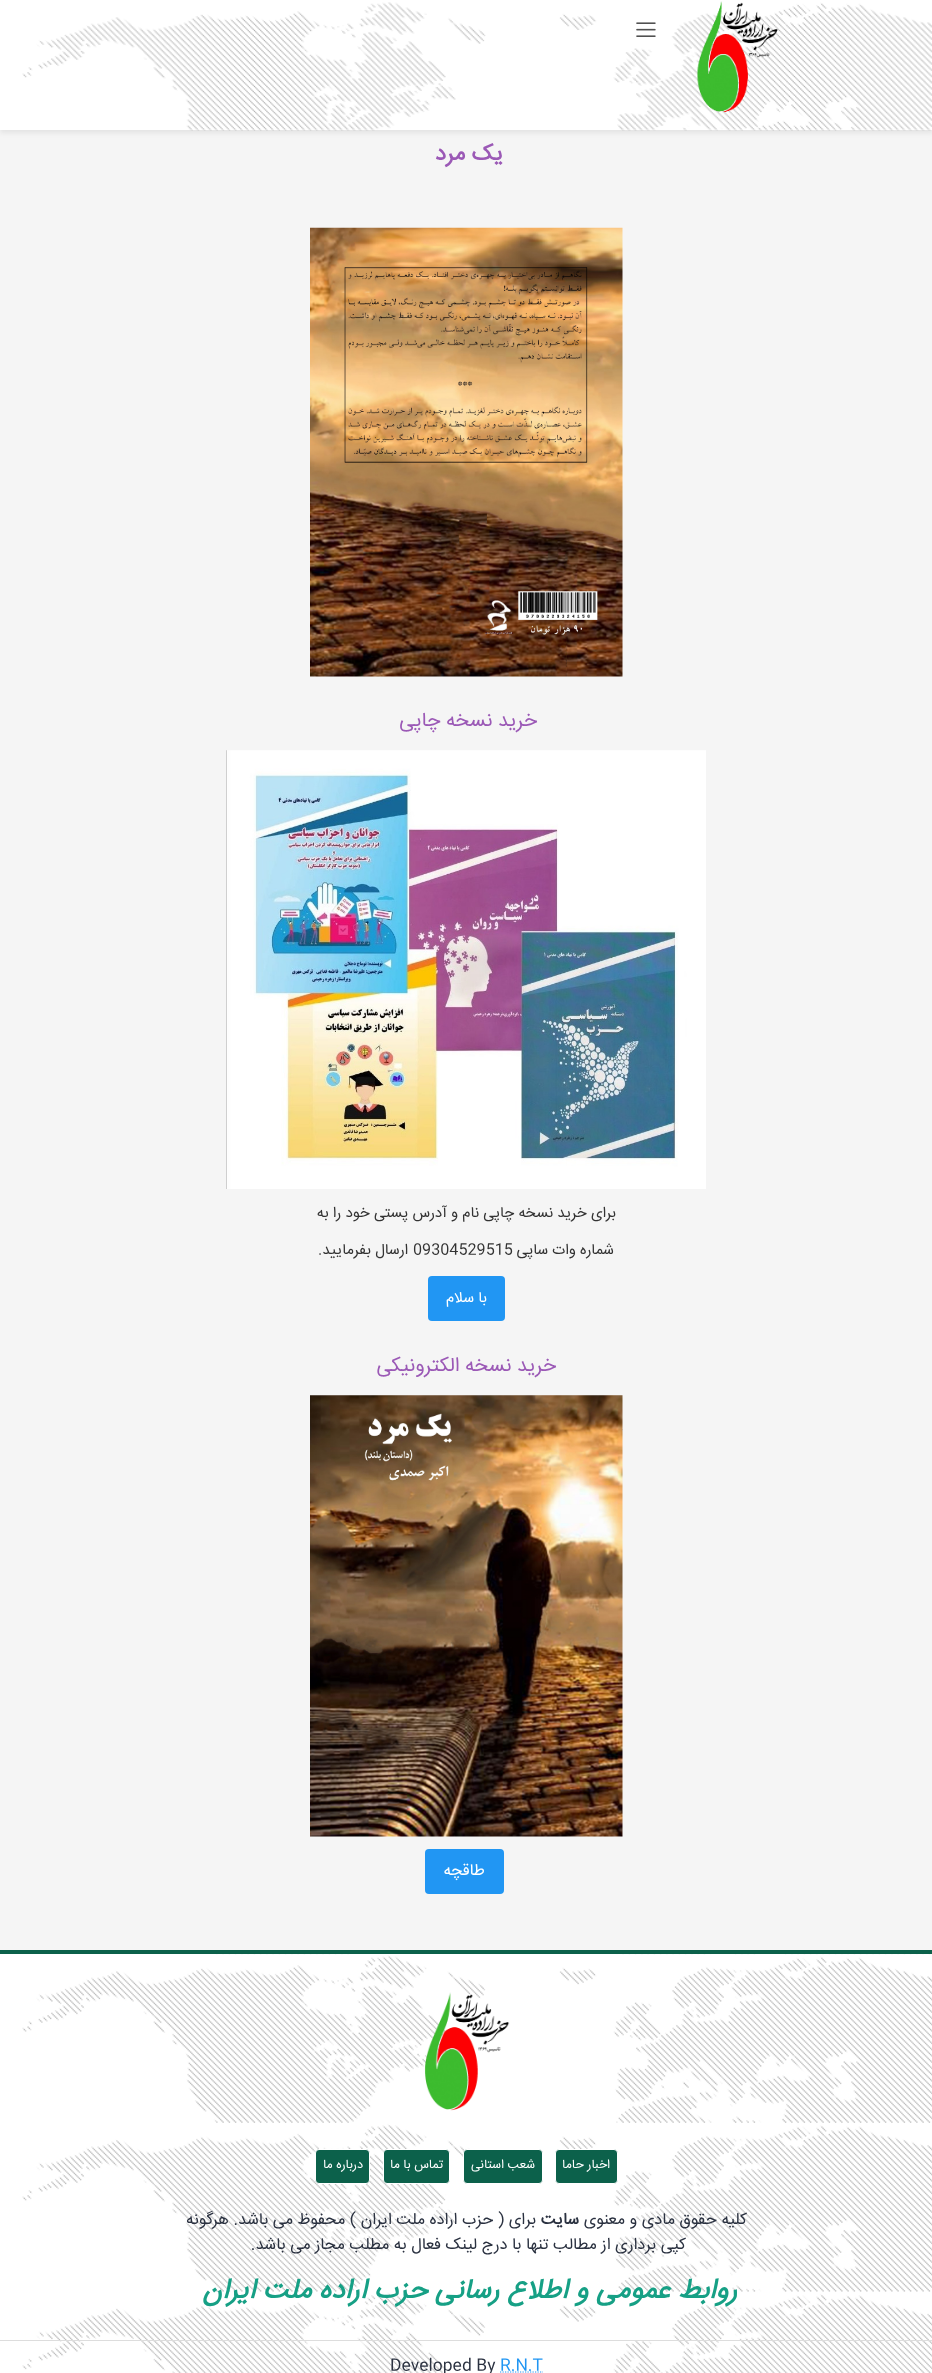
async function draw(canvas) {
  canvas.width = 932
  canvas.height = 2373
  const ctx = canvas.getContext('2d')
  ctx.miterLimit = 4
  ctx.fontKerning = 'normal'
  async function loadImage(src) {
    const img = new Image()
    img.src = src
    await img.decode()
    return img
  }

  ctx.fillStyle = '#f5f5f5'
  ctx.fillRect(0, 0, 932, 2373)
  ctx.fillStyle = '#00000012'
  ctx.filter = 'blur(2.5px)'
  ctx.beginPath()
  ctx.rect(0, 3, 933, 130)
  ctx.fill()
  ctx.filter = 'none'
  ctx.fillStyle = '#fff'
  ctx.fillRect(0, 0, 932, 130)
  ctx.drawImage(await loadImage('image0.png'), 22, 2, 910, 129)
  ctx.drawImage(await loadImage('image1.png'), 697, 1, 81, 112)
  ctx.drawImage(await loadImage('image2.png'), 636, 22, 20, 15)
  ctx.direction = 'rtl'
  ctx.font = 'bold 22.5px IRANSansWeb'
  ctx.fillStyle = '#9b59b6'
  ctx.fillText('یک مرد', 503, 160)
  ctx.drawImage(await loadImage('image3.png'), 310, 227, 313, 450)
  ctx.font = '20px IRANSansWeb'
  ctx.fillText('خرید نسخه چاپی', 537, 726)
  ctx.drawImage(await loadImage('image4.png'), 226, 750, 480, 439)
  ctx.font = '15px IRANSansWeb'
  ctx.fillStyle = '#333'
  ctx.fillText('برای خرید نسخه چاپی نام و آدرس پستی خود را به', 616, 1217)
  ctx.fillText('شماره وات ساپی', 614, 1254)
  ctx.direction = 'ltr'
  ctx.fillText('09304529515', 413, 1254)
  ctx.direction = 'rtl'
  ctx.fillText('ارسال بفرمایید.', 408, 1254)
  ctx.fillStyle = '#2196f3'
  ctx.beginPath()
  ctx.roundRect(428, 1276, 77, 45, 4)
  ctx.fill()
  ctx.fillStyle = '#fff'
  ctx.fillText('با سلام', 487, 1302)
  ctx.font = '20px IRANSansWeb'
  ctx.fillStyle = '#9b59b6'
  ctx.fillText('خرید نسخه الکترونیکی', 556, 1371)
  ctx.drawImage(await loadImage('image5.png'), 310, 1395, 313, 442)
  ctx.fillStyle = '#2196f3'
  ctx.beginPath()
  ctx.roundRect(425, 1849, 79, 45, 4)
  ctx.fill()
  ctx.font = '16.25px IRANSansWeb'
  ctx.fillStyle = '#fff'
  ctx.fillText('طاقچه', 485, 1875)
  ctx.fillRect(0, 1954, 932, 419)
  ctx.drawImage(await loadImage('image6.png'), 22, 1954, 910, 419)
  ctx.fillStyle = '#0c614b'
  ctx.fillRect(0, 1950, 932, 4)
  ctx.drawImage(await loadImage('image7.png'), 424, 1992, 86, 119)
  ctx.beginPath()
  ctx.roundRect(555.5, 2149.5, 62, 34, 3.5)
  ctx.fill()
  ctx.strokeStyle = '#fff'
  ctx.stroke()
  ctx.font = '12.5px IRANSansWeb'
  ctx.fillStyle = '#fff'
  ctx.fillText('اخبار حاما', 610, 2168)
  ctx.fillStyle = '#0c614b'
  ctx.beginPath()
  ctx.roundRect(463.5, 2149.5, 79, 34, 3.5)
  ctx.fill()
  ctx.stroke()
  ctx.fillStyle = '#fff'
  ctx.fillText('شعب استانی', 535, 2168)
  ctx.fillStyle = '#0c614b'
  ctx.beginPath()
  ctx.roundRect(383.5, 2149.5, 66, 34, 3.5)
  ctx.fill()
  ctx.stroke()
  ctx.fillStyle = '#fff'
  ctx.fillText('تماس با ما', 443, 2168)
  ctx.fillStyle = '#0c614b'
  ctx.beginPath()
  ctx.roundRect(315.5, 2149.5, 54, 34, 3.5)
  ctx.fill()
  ctx.stroke()
  ctx.fillStyle = '#fff'
  ctx.fillText('درباره ما', 363, 2168)
  ctx.font = '16.25px IRANSansWeb'
  ctx.fillStyle = '#2a3140'
  ctx.fillText('کلیه حقوق مادی و معنوی', 747, 2224)
  ctx.font = 'bold 16.25px IRANSansWeb'
  ctx.fillText('سایت', 579, 2224)
  ctx.font = '16.25px IRANSansWeb'
  ctx.fillText('برای ( حزب اراده ملت ایران ) محفوظ می باشد. هرگونه', 536, 2224)
  ctx.fillText('کپی برداری از مطالب تنها با درج لینک فعال به مطلب مجاز می باشد.', 686, 2249)
  ctx.font = 'italic bold 27.5px IRANSansWeb'
  ctx.fillStyle = '#16a085'
  ctx.fillText('روابط عمومی و اطلاع رسانی حزب اراده ملت ایران', 737, 2298)
  ctx.fillStyle = '#ddd'
  ctx.fillRect(0, 2340, 932, 1)
  ctx.direction = 'ltr'
  ctx.font = '16.25px IRANSansWeb'
  ctx.fillStyle = '#2196f3'
  ctx.fillText('R.N.T', 500, 2370)
  ctx.beginPath()
  ctx.moveTo(500, 2372)
  ctx.lineTo(543, 2372)
  ctx.strokeStyle = '#2196f3'
  ctx.lineWidth = 1.2
  ctx.setLineDash([1.25, 1.25])
  ctx.stroke()
  ctx.fillStyle = '#2a3140'
  ctx.fillText('Developed By', 390, 2370)
}

draw(document.querySelector('canvas'))
